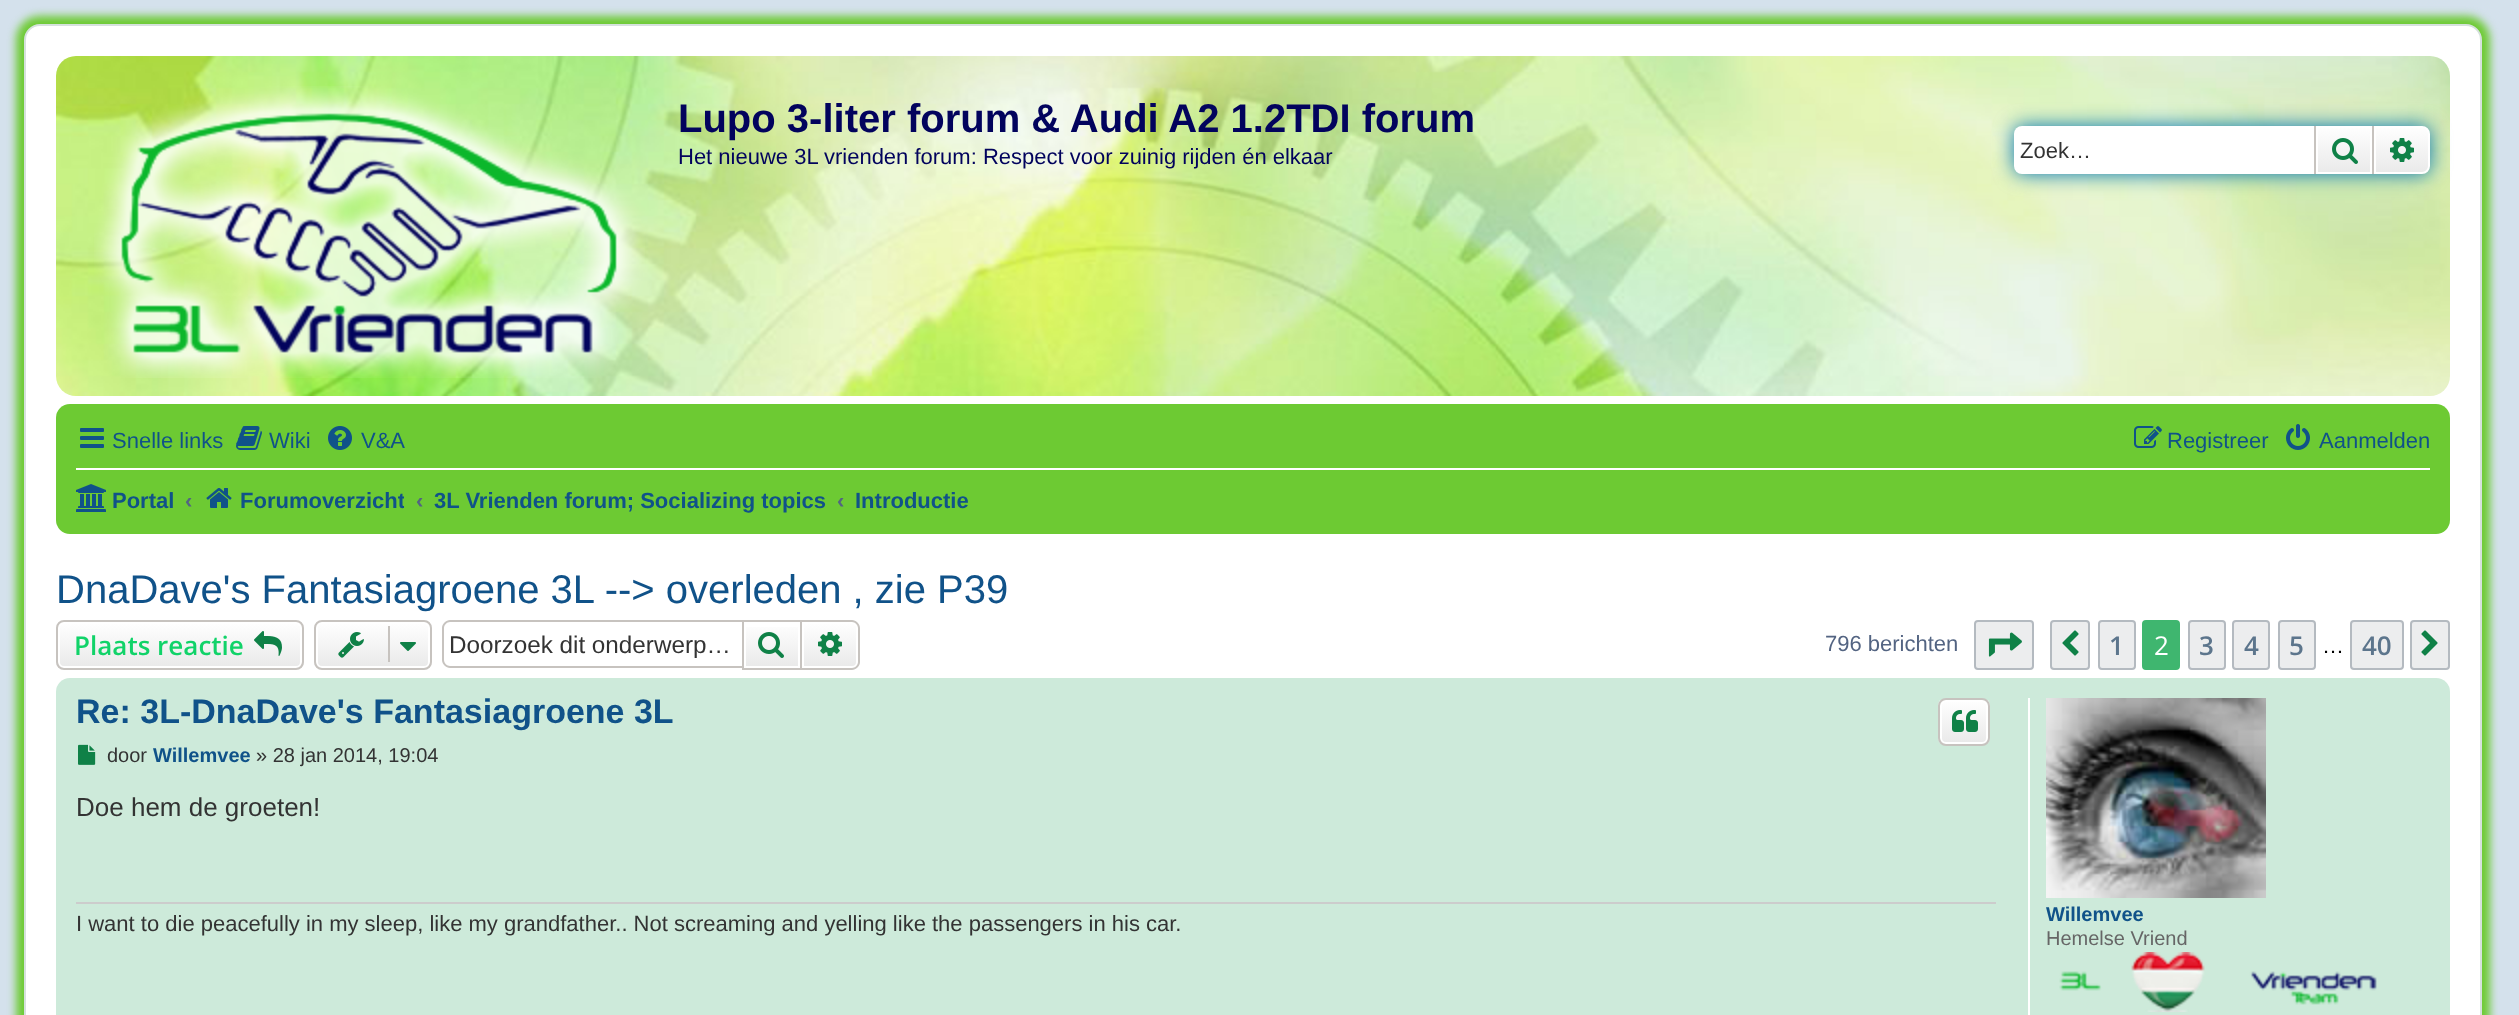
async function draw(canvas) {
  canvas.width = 2519
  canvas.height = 1015
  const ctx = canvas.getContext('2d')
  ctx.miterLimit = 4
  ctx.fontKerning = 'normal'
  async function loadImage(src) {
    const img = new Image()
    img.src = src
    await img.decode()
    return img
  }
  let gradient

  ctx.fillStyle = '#d4e1ec'
  ctx.fillRect(0, 0, 2519, 1015)
  ctx.fillStyle = '#6dca33'
  ctx.filter = 'blur(4px)'
  ctx.beginPath()
  ctx.roundRect(16, 16, 2474, 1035, 24)
  ctx.fill()
  ctx.filter = 'none'
  ctx.fillStyle = '#fff'
  ctx.beginPath()
  ctx.roundRect(25, 25, 2456, 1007, 15)
  ctx.fill()
  ctx.strokeStyle = '#d6e1dd'
  ctx.lineWidth = 2
  ctx.stroke()
  ctx.drawImage(await loadImage('image0.png'), 56, 56, 2394, 340)
  ctx.drawImage(await loadImage('image1.png'), 94, 86, 551, 292)
  ctx.font = 'bold 40px Liberation Sans'
  ctx.fillStyle = '#02035d'
  ctx.fillText('Lupo 3-liter forum & Audi A2 1.2TDI forum', 678, 132)
  ctx.font = '22px Liberation Sans'
  ctx.fillText('Het nieuwe 3L vrienden forum: Respect voor zuinig rijden én elkaar', 678, 164)
  ctx.fillStyle = '#0075b0'
  ctx.filter = 'blur(10px)'
  ctx.beginPath()
  ctx.roundRect(2014, 126, 416, 48, 8)
  ctx.fill()
  ctx.filter = 'none'
  ctx.fillStyle = '#fff'
  ctx.beginPath()
  ctx.roundRect(2014, 126, 300, 48, [8, 0, 0, 8])
  ctx.fill()
  ctx.fillStyle = '#333'
  ctx.fillText('Zoek…', 2020, 158)
  gradient = ctx.createLinearGradient(2344, 126, 2344, 174)
  gradient.addColorStop(0, '#fff')
  gradient.addColorStop(1, '#e9e9e9')
  ctx.fillStyle = gradient
  ctx.fillRect(2318, 128, 52, 44)
  ctx.strokeStyle = '#fff'
  ctx.strokeRect(2317, 127, 54, 46)
  ctx.fillStyle = '#c7c3bf'
  ctx.fillRect(2372, 126, 2, 48)
  ctx.fillRect(2314, 126, 2, 48)
  ctx.drawImage(await loadImage('image2.png'), 2332, 138, 26, 26)
  gradient = ctx.createLinearGradient(2402, 126, 2402, 174)
  gradient.addColorStop(0, '#fff')
  gradient.addColorStop(1, '#e9e9e9')
  ctx.fillStyle = gradient
  ctx.beginPath()
  ctx.roundRect(2375, 127, 54, 46, [0, 7, 7, 0])
  ctx.fill()
  ctx.stroke()
  ctx.drawImage(await loadImage('image3.png'), 2390, 138, 24, 24)
  ctx.fillStyle = '#6dca33'
  ctx.beginPath()
  ctx.roundRect(56, 404, 2394, 130, 14)
  ctx.fill()
  ctx.drawImage(await loadImage('image4.png'), 80, 428, 24, 20)
  ctx.fillStyle = '#105289'
  ctx.fillText('Snelle links', 112, 448)
  ctx.drawImage(await loadImage('image5.png'), 236, 426, 26, 24)
  ctx.fillText('Wiki', 269, 448)
  ctx.drawImage(await loadImage('image6.png'), 328, 426, 24, 24)
  ctx.fillText('V&A', 361, 448)
  ctx.drawImage(await loadImage('image7.png'), 2134, 426, 28, 22)
  ctx.fillText('Registreer', 2167, 448)
  ctx.drawImage(await loadImage('image8.png'), 2286, 424, 24, 26)
  ctx.fillText('Aanmelden', 2319, 448)
  ctx.fillStyle = '#fff'
  ctx.fillRect(76, 468, 2354, 2)
  ctx.drawImage(await loadImage('image9.png'), 76, 484, 30, 28)
  ctx.font = 'bold 22px Liberation Sans'
  ctx.fillStyle = '#105289'
  ctx.fillText('Portal', 112, 508)
  ctx.fillStyle = '#536482'
  ctx.fillText('‹', 185, 508)
  ctx.drawImage(await loadImage('image10.png'), 206, 488, 26, 20)
  ctx.save()
  ctx.beginPath()
  ctx.rect(204, 476, 200, 48)
  ctx.clip()
  ctx.fillStyle = '#105289'
  ctx.fillText('Forumoverzicht', 240, 508)
  ctx.restore()
  ctx.fillText('‹', 416, 508)
  ctx.fillStyle = '#105289'
  ctx.fillText('3L Vrienden forum; Socializing topics', 434, 508)
  ctx.fillStyle = '#536482'
  ctx.fillText('‹', 837, 508)
  ctx.fillStyle = '#105289'
  ctx.fillText('Introductie', 855, 508)
  ctx.font = '40px Liberation Sans'
  ctx.fillText('DnaDave\'s Fantasiagroene 3L --> overleden , zie P39', 56, 603)
  ctx.save()
  ctx.beginPath()
  ctx.roundRect(56, 620, 248, 50, 8)
  ctx.clip()
  gradient = ctx.createLinearGradient(180, 622, 180, 668)
  gradient.addColorStop(0, '#fff')
  gradient.addColorStop(1, '#e9e9e9')
  ctx.fillStyle = gradient
  ctx.fillRect(56, 622, 248, 46)
  ctx.restore()
  ctx.beginPath()
  ctx.roundRect(59, 623, 242, 44, 5)
  ctx.stroke()
  ctx.beginPath()
  ctx.roundRect(57, 621, 246, 48, 7)
  ctx.strokeStyle = '#c7c3bf'
  ctx.stroke()
  ctx.font = '600 26px Open Sans'
  ctx.fillStyle = '#11d369'
  ctx.fillText('Plaats reactie', 74, 655)
  ctx.drawImage(await loadImage('image11.png'), 254, 631, 28, 25)
  ctx.save()
  ctx.beginPath()
  ctx.roundRect(314, 620, 118, 50, 8)
  ctx.clip()
  gradient = ctx.createLinearGradient(373, 622, 373, 668)
  gradient.addColorStop(0, '#fff')
  gradient.addColorStop(1, '#e9e9e9')
  ctx.fillStyle = gradient
  ctx.fillRect(314, 622, 118, 46)
  ctx.restore()
  ctx.beginPath()
  ctx.roundRect(317, 623, 112, 44, 5)
  ctx.strokeStyle = '#fff'
  ctx.stroke()
  ctx.beginPath()
  ctx.roundRect(315, 621, 116, 48, 7)
  ctx.strokeStyle = '#c7c3bf'
  ctx.stroke()
  ctx.drawImage(await loadImage('image12.png'), 338, 632, 26, 26)
  ctx.fillStyle = '#c7c3bf'
  ctx.fillRect(388, 626, 2, 36)
  ctx.drawImage(await loadImage('image13.png'), 400, 642, 16, 9)
  ctx.beginPath()
  ctx.moveTo(450, 620)
  ctx.lineTo(742, 620)
  ctx.lineTo(742, 668)
  ctx.lineTo(450, 668)
  ctx.bezierCurveTo(446, 668, 442, 664, 442, 660)
  ctx.lineTo(442, 628)
  ctx.bezierCurveTo(442, 624, 446, 620, 450, 620)
  ctx.closePath()
  ctx.moveTo(450, 622)
  ctx.lineTo(742, 622)
  ctx.lineTo(742, 666)
  ctx.lineTo(450, 666)
  ctx.bezierCurveTo(447, 666, 444, 663, 444, 660)
  ctx.lineTo(444, 628)
  ctx.bezierCurveTo(444, 625, 447, 622, 450, 622)
  ctx.closePath()
  ctx.fill('evenodd')
  ctx.font = '24.25px Liberation Sans'
  ctx.fillStyle = '#333'
  ctx.fillText('Doorzoek dit onderwerp…', 449, 653)
  gradient = ctx.createLinearGradient(772, 622, 772, 668)
  gradient.addColorStop(0, '#fff')
  gradient.addColorStop(1, '#e9e9e9')
  ctx.fillStyle = gradient
  ctx.fillRect(746, 627, 52, 39)
  ctx.strokeRect(743, 621, 58, 48)
  ctx.drawImage(await loadImage('image14.png'), 758, 632, 26, 26)
  gradient = ctx.createLinearGradient(830, 622, 830, 668)
  gradient.addColorStop(0, '#fff')
  gradient.addColorStop(1, '#e9e9e9')
  ctx.fillStyle = gradient
  ctx.beginPath()
  ctx.roundRect(803, 623, 54, 44, [0, 5, 5, 0])
  ctx.fill()
  ctx.strokeStyle = '#fff'
  ctx.stroke()
  ctx.fillStyle = '#c7c3bf'
  ctx.beginPath()
  ctx.moveTo(802, 620)
  ctx.lineTo(852, 620)
  ctx.bezierCurveTo(856, 620, 860, 624, 860, 628)
  ctx.lineTo(860, 662)
  ctx.bezierCurveTo(860, 666, 856, 670, 852, 670)
  ctx.lineTo(802, 670)
  ctx.closePath()
  ctx.moveTo(802, 622)
  ctx.lineTo(852, 622)
  ctx.bezierCurveTo(855, 622, 858, 625, 858, 628)
  ctx.lineTo(858, 662)
  ctx.bezierCurveTo(858, 665, 855, 668, 852, 668)
  ctx.lineTo(802, 668)
  ctx.closePath()
  ctx.fill('evenodd')
  ctx.drawImage(await loadImage('image15.png'), 818, 632, 24, 24)
  ctx.font = '22px Liberation Sans'
  ctx.fillStyle = '#536482'
  ctx.fillText('796 berichten', 1825, 651)
  ctx.fillStyle = '#ecedee'
  ctx.beginPath()
  ctx.roundRect(1975, 621, 58, 48, 3)
  ctx.fill()
  ctx.strokeStyle = '#b4bac0'
  ctx.stroke()
  ctx.drawImage(await loadImage('image16.png'), 1988, 632, 34, 25)
  ctx.beginPath()
  ctx.roundRect(2051, 621, 38, 48, 3)
  ctx.fill()
  ctx.stroke()
  ctx.drawImage(await loadImage('image17.png'), 2062, 630, 17, 26)
  ctx.beginPath()
  ctx.roundRect(2099, 621, 36, 48, 3)
  ctx.fill()
  ctx.stroke()
  ctx.font = '600 26px Open Sans'
  ctx.fillStyle = '#5c758c'
  ctx.fillText('1', 2109, 655)
  ctx.fillStyle = '#3fb66f'
  ctx.beginPath()
  ctx.roundRect(2143, 621, 36, 48, 3)
  ctx.fill()
  ctx.strokeStyle = '#3fb66f'
  ctx.stroke()
  ctx.font = '26px Open Sans'
  ctx.fillStyle = '#fff'
  ctx.fillText('2', 2154, 655)
  ctx.fillStyle = '#ecedee'
  ctx.beginPath()
  ctx.roundRect(2189, 621, 36, 48, 3)
  ctx.fill()
  ctx.strokeStyle = '#b4bac0'
  ctx.stroke()
  ctx.font = '600 26px Open Sans'
  ctx.fillStyle = '#5c758c'
  ctx.fillText('3', 2199, 655)
  ctx.fillStyle = '#ecedee'
  ctx.beginPath()
  ctx.roundRect(2233, 621, 36, 48, 3)
  ctx.fill()
  ctx.stroke()
  ctx.fillStyle = '#5c758c'
  ctx.fillText('4', 2244, 655)
  ctx.fillStyle = '#ecedee'
  ctx.beginPath()
  ctx.roundRect(2279, 621, 36, 48, 3)
  ctx.fill()
  ctx.stroke()
  ctx.fillStyle = '#5c758c'
  ctx.fillText('5', 2289, 655)
  ctx.font = '22px Liberation Sans'
  ctx.fillStyle = '#000'
  ctx.fillText('…', 2322, 653)
  ctx.fillStyle = '#ecedee'
  ctx.beginPath()
  ctx.roundRect(2351, 621, 52, 48, 3)
  ctx.fill()
  ctx.stroke()
  ctx.font = '600 26px Open Sans'
  ctx.fillStyle = '#5c758c'
  ctx.fillText('40', 2362, 655)
  ctx.fillStyle = '#ecedee'
  ctx.beginPath()
  ctx.roundRect(2411, 621, 38, 48, 3)
  ctx.fill()
  ctx.stroke()
  ctx.drawImage(await loadImage('image18.png'), 2421, 630, 17, 26)
  ctx.fillStyle = '#cdeada'
  ctx.beginPath()
  ctx.roundRect(56, 678, 2394, 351, 14)
  ctx.fill()
  ctx.font = 'bold 34px Liberation Sans'
  ctx.fillStyle = '#105289'
  ctx.fillText('Re: 3L-DnaDave\'s Fantasiagroene 3L', 76, 723)
  ctx.save()
  ctx.beginPath()
  ctx.roundRect(1938, 698, 52, 48, 8)
  ctx.clip()
  gradient = ctx.createLinearGradient(1964, 700, 1964, 744)
  gradient.addColorStop(0, '#fff')
  gradient.addColorStop(1, '#e9e9e9')
  ctx.fillStyle = gradient
  ctx.fillRect(1938, 700, 52, 44)
  ctx.restore()
  ctx.beginPath()
  ctx.roundRect(1941, 701, 46, 42, 5)
  ctx.strokeStyle = '#fff'
  ctx.stroke()
  ctx.beginPath()
  ctx.roundRect(1939, 699, 50, 46, 7)
  ctx.strokeStyle = '#c7c3bf'
  ctx.stroke()
  ctx.drawImage(await loadImage('image19.png'), 1952, 710, 26, 22)
  ctx.drawImage(await loadImage('image20.png'), 78, 744, 18, 21)
  ctx.font = '20px Liberation Sans'
  ctx.fillStyle = '#333'
  ctx.fillText('door', 107, 762)
  ctx.font = 'bold 20px Liberation Sans'
  ctx.fillStyle = '#105289'
  ctx.fillText('Willemvee', 153, 762)
  ctx.font = '20px Liberation Sans'
  ctx.fillStyle = '#333'
  ctx.fillText('» 28 jan 2014, 19:04', 256, 762)
  ctx.font = '26px Liberation Sans'
  ctx.fillText('Doe hem de groeten!', 76, 816)
  ctx.fillStyle = '#ccc'
  ctx.fillRect(76, 902, 1920, 2)
  ctx.font = '22px Liberation Sans'
  ctx.fillStyle = '#333'
  ctx.fillText('I want to die peacefully in my sleep, like my grandfather.. Not screaming and yelling like the passengers in his car.', 76, 931)
  ctx.fillStyle = '#fff'
  ctx.fillRect(2028, 698, 2, 317)
  ctx.drawImage(await loadImage('image21.png'), 2046, 698, 220, 200)
  ctx.font = 'bold 20px Liberation Sans'
  ctx.fillStyle = '#105289'
  ctx.fillText('Willemvee', 2046, 921)
  ctx.font = '20px Liberation Sans'
  ctx.fillStyle = '#666'
  ctx.fillText('Hemelse Vriend', 2046, 945)
  ctx.drawImage(await loadImage('image22.png'), 2059, 952, 318, 60)
}

draw(document.querySelector('canvas'))
